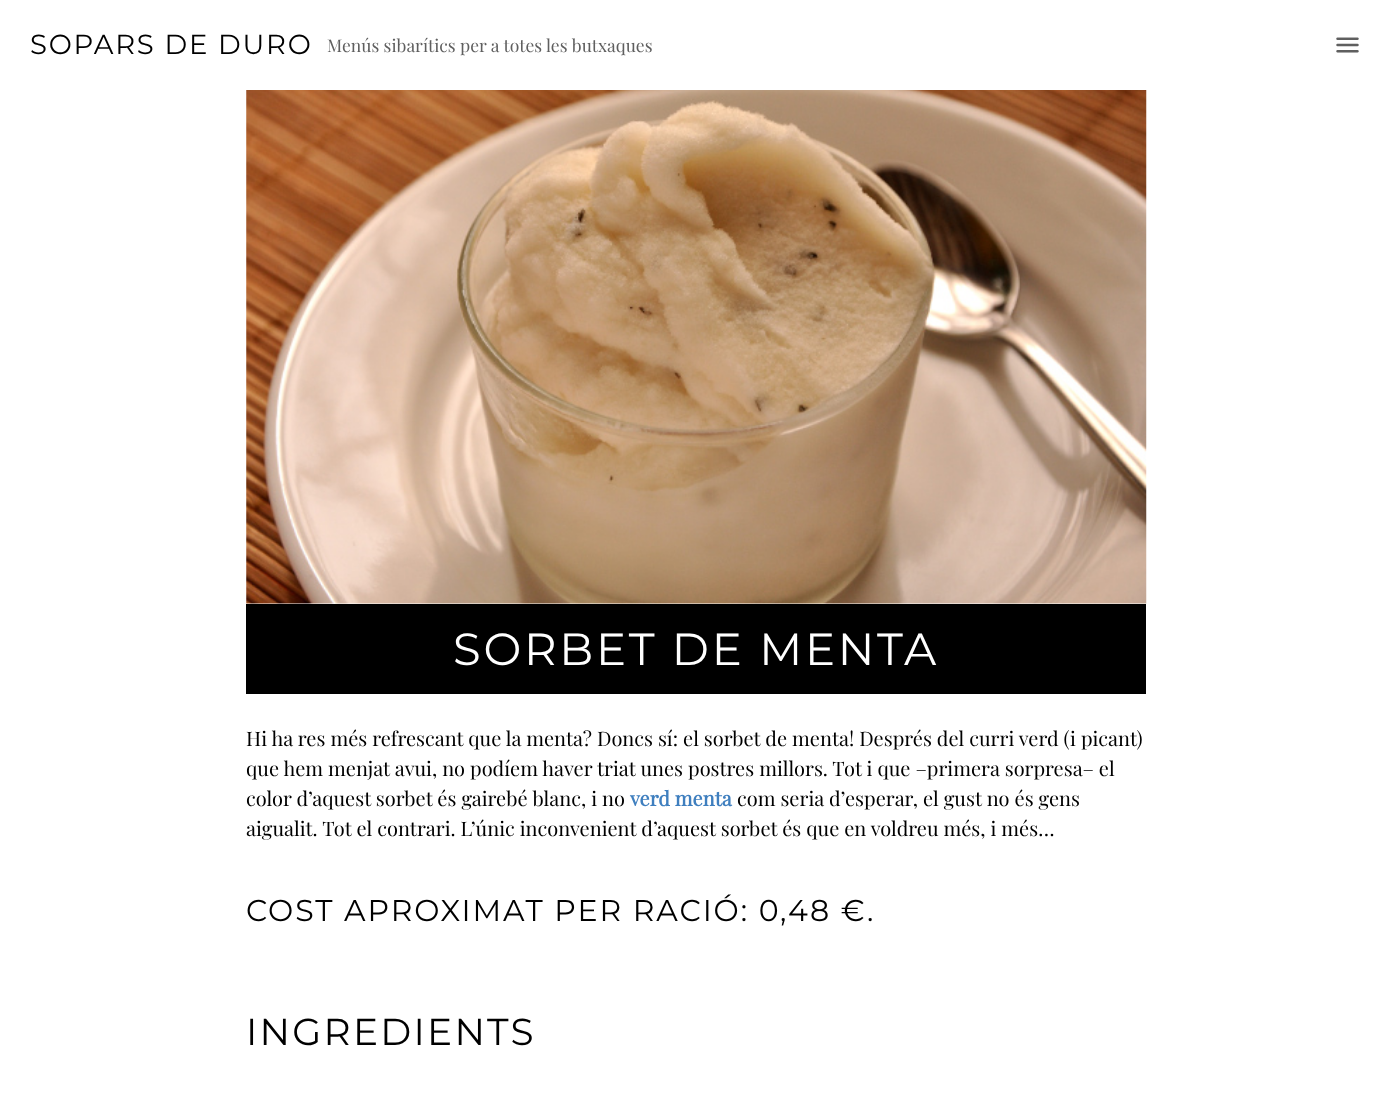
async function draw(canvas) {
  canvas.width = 1392
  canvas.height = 1102
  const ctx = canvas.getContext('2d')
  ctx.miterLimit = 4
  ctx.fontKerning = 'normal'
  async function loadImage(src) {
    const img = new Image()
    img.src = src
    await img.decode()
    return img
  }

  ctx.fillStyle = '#fff'
  ctx.fillRect(0, 0, 1392, 1102)
  ctx.letterSpacing = '1.75px'
  ctx.font = '100 27.5px Montserrat'
  ctx.fillStyle = '#000'
  ctx.fillText('SOPARS DE DURO', 30, 54)
  ctx.letterSpacing = '0px'
  ctx.font = '17.5px Playfair Display'
  ctx.fillStyle = '#5f5f5f'
  ctx.fillText('Menús sibarítics per a totes les butxaques', 327, 52)
  ctx.drawImage(await loadImage('image0.png'), 1336, 37, 23, 16)
  ctx.drawImage(await loadImage('image1.png'), 246, 90, 901, 514)
  ctx.fillStyle = '#000'
  ctx.fillRect(246, 604, 900, 90)
  ctx.letterSpacing = '2.75px'
  ctx.font = '100 45px Montserrat'
  ctx.fillStyle = '#fff'
  ctx.fillText('SORBET DE MENTA', 453, 665)
  ctx.letterSpacing = '0px'
  ctx.font = '20px Playfair Display'
  ctx.fillStyle = '#000'
  ctx.fillText('Hi ha res més refrescant que la menta? Doncs sí: el sorbet de menta! Després del curri verd (i picant)', 246, 746)
  ctx.fillText('que hem menjat avui, no podíem haver triat unes postres millors. Tot i que –primera sorpresa– el', 246, 776)
  ctx.fillText('color d’aquest sorbet és gairebé blanc, i no', 246, 806)
  ctx.font = 'bold 20px Playfair Display'
  ctx.fillStyle = '#3f7fbf'
  ctx.fillText('verd menta', 630, 806)
  ctx.font = '20px Playfair Display'
  ctx.fillStyle = '#000'
  ctx.fillText('com seria d’esperar, el gust no és gens', 737, 806)
  ctx.fillText('aigualit. Tot el contrari. L’únic inconvenient d’aquest sorbet és que en voldreu més, i més…', 246, 836)
  ctx.letterSpacing = '1.9px'
  ctx.font = '100 30px Montserrat'
  ctx.fillText('COST APROXIMAT PER RACIÓ: 0,48 €.', 246, 921)
  ctx.letterSpacing = '2.25px'
  ctx.font = '100 37.5px Montserrat'
  ctx.fillText('INGREDIENTS', 246, 1045)
}

draw(document.querySelector('canvas'))
